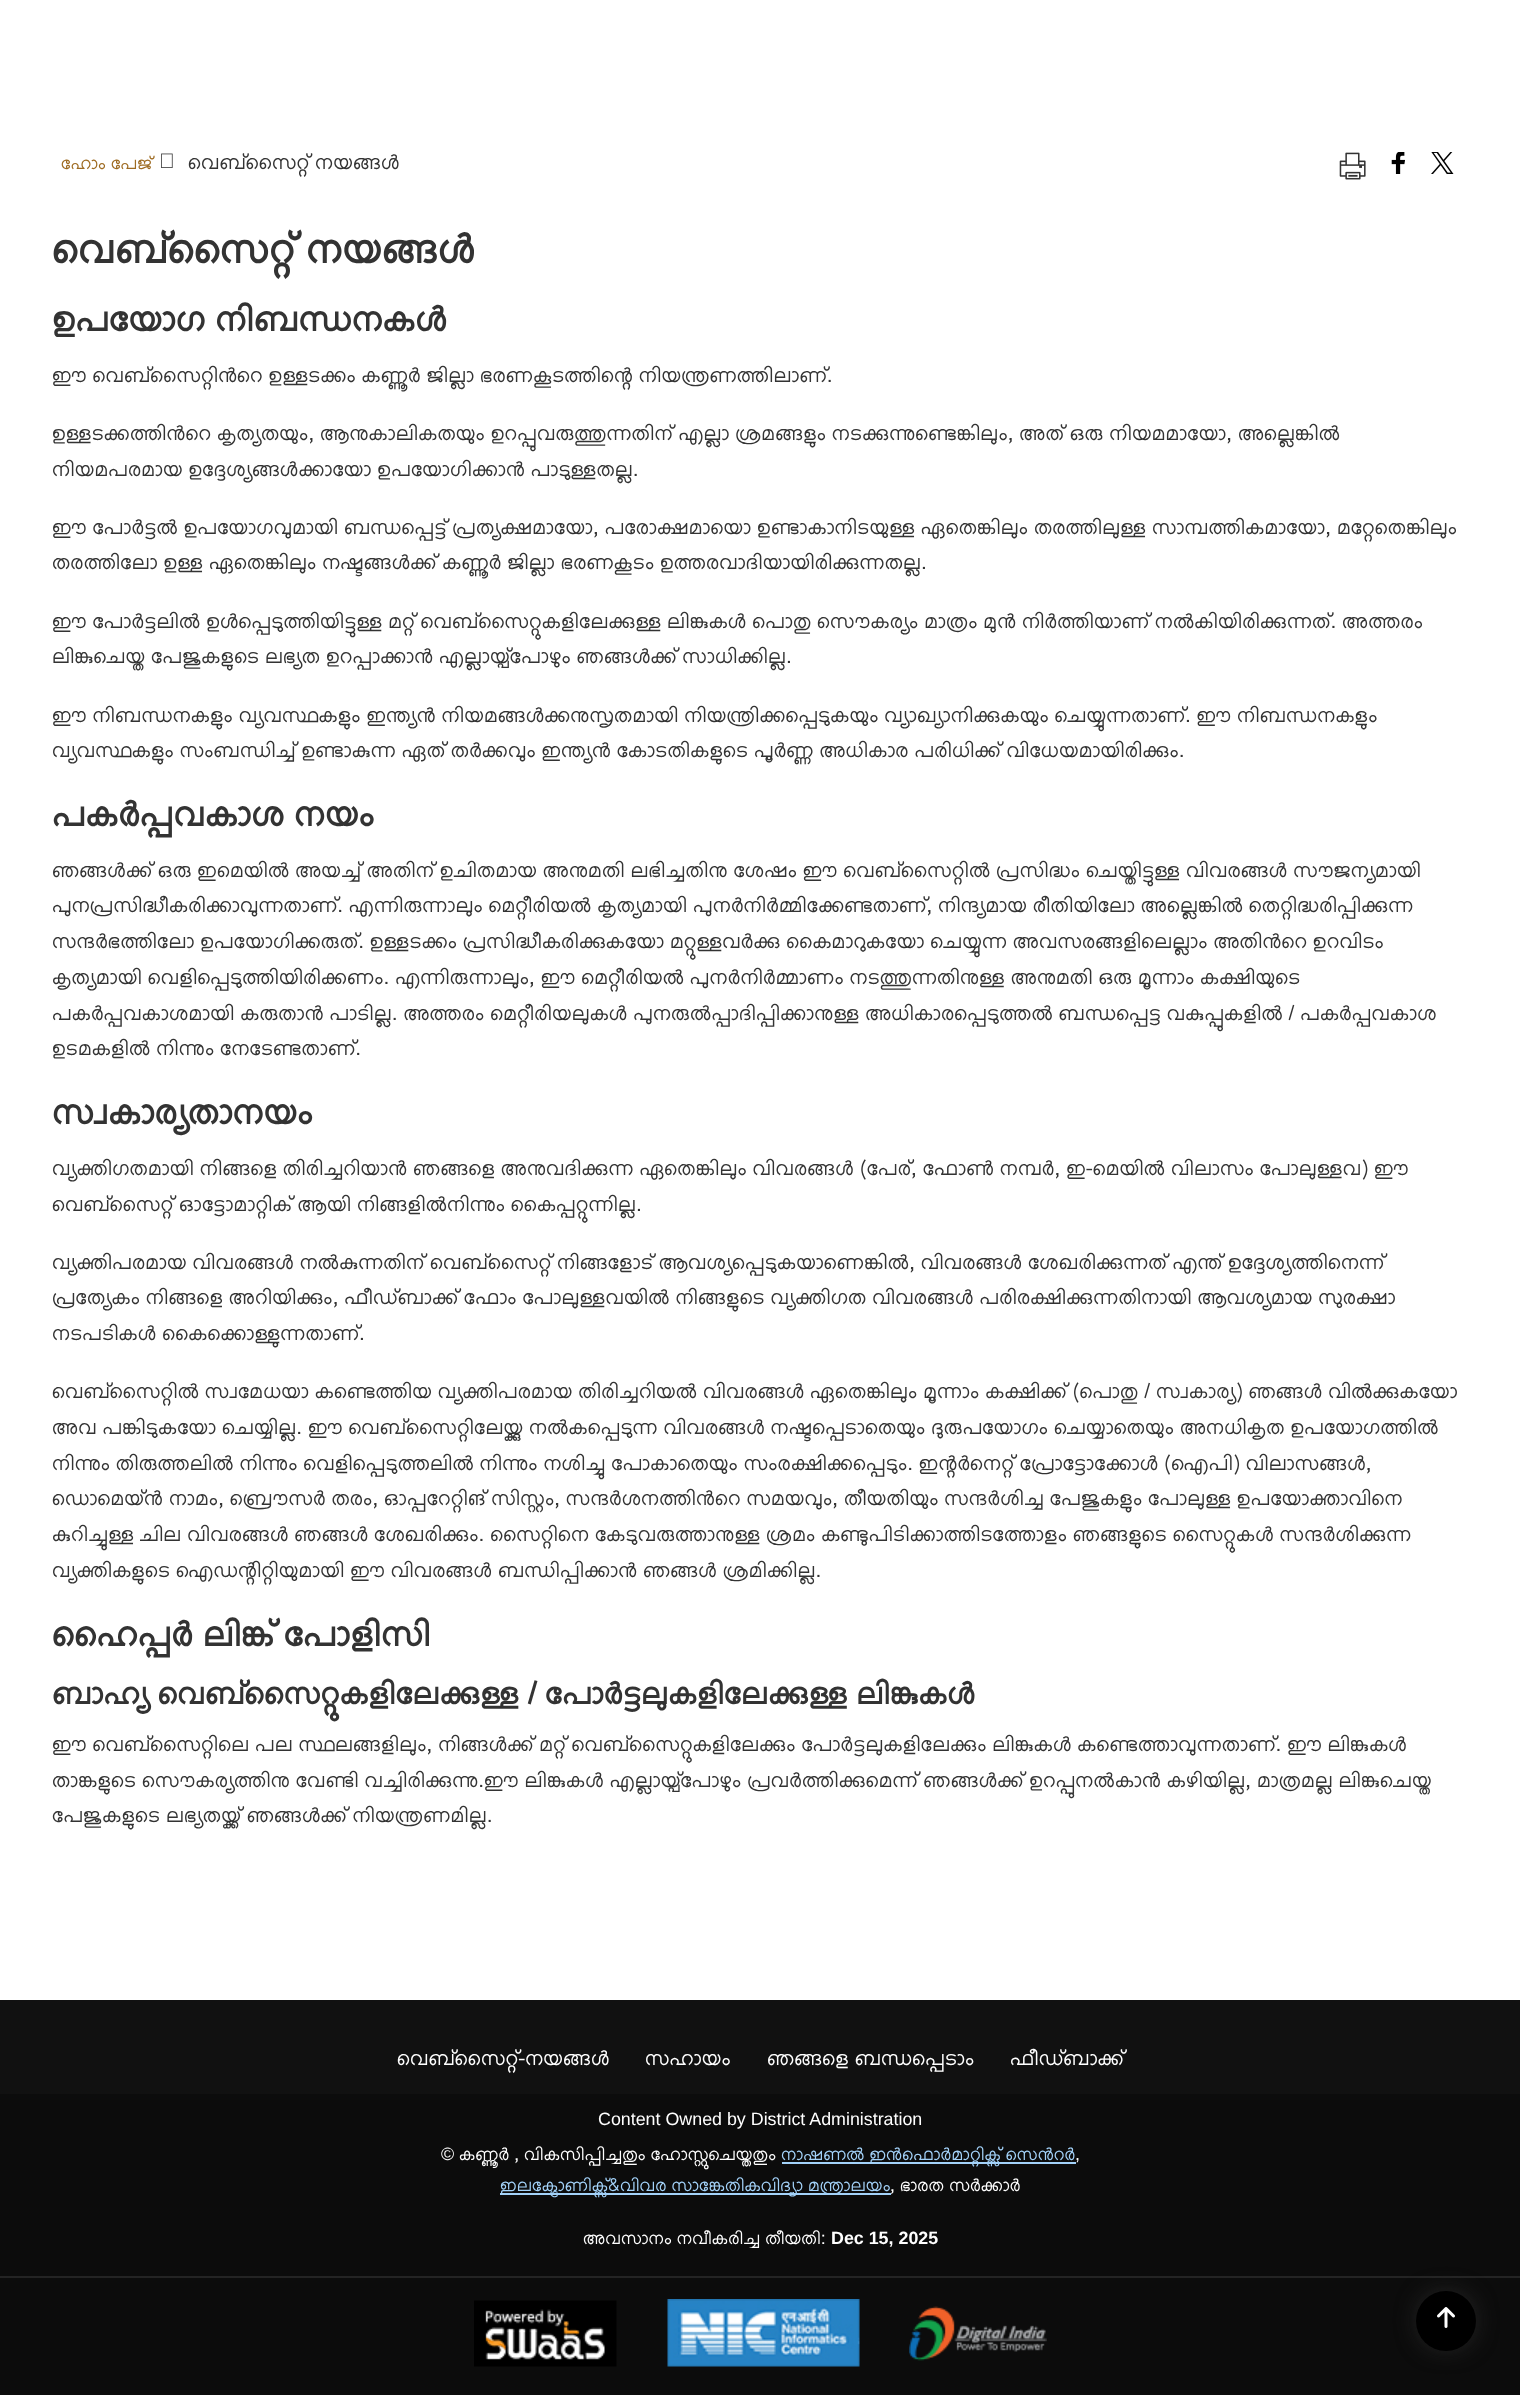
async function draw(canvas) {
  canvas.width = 1520
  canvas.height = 2395
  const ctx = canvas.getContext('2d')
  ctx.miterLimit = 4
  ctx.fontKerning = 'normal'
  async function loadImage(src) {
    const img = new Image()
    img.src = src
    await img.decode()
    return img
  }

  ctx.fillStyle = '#fff'
  ctx.fillRect(0, 0, 1520, 2395)
  ctx.font = '17.85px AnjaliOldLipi'
  ctx.fillStyle = '#9e6b22'
  ctx.fillText('ഹോം പേജ്', 61, 169)
  ctx.drawImage(await loadImage('image0.png'), 161, 153, 12, 15)
  ctx.font = '21px AnjaliOldLipi'
  ctx.fillStyle = '#333'
  ctx.fillText('വെബ്സൈറ്റ് നയങ്ങൾ', 188, 169)
  ctx.drawImage(await loadImage('image1.png'), 1339, 152, 27, 28)
  ctx.drawImage(await loadImage('image2.png'), 1391, 152, 14, 22)
  ctx.drawImage(await loadImage('image3.png'), 1431, 152, 23, 22)
  ctx.font = 'bold 42px AnjaliOldLipi'
  ctx.fillText('വെബ്സൈറ്റ് നയങ്ങൾ', 52, 263)
  ctx.font = 'bold 35.75px AnjaliOldLipi'
  ctx.fillText('ഉപയോഗ നിബന്ധനകൾ', 52, 331)
  ctx.font = '21px AnjaliOldLipi'
  ctx.fillText('ഈ വെബ്സൈറ്റിന്‍റെ ഉള്ളടക്കം കണ്ണൂര്‍ ജില്ലാ ഭരണകൂടത്തിന്റെ നിയന്ത്രണത്തിലാണ്.', 52, 382)
  ctx.fillText('ഉള്ളടക്കത്തിന്‍റെ കൃത്യതയും, ആനുകാലികതയും ഉറപ്പുവരുത്തുന്നതിന് എല്ലാ ശ്രമങ്ങളും നടക്കുന്നുണ്ടെങ്കിലും, അത് ഒരു നിയമമായോ, അല്ലെങ്കിൽ', 52, 440)
  ctx.fillText('നിയമപരമായ ഉദ്ദേശ്യങ്ങൾക്കായോ ഉപയോഗിക്കാൻ പാടുള്ളതല്ല.', 52, 476)
  ctx.fillText('ഈ പോർട്ടൽ ഉപയോഗവുമായി ബന്ധപ്പെട്ട് പ്രത്യക്ഷമായോ, പരോക്ഷമായൊ ഉണ്ടാകാനിടയുള്ള ഏതെങ്കിലും തരത്തിലുള്ള സാമ്പത്തികമായോ, മറ്റേതെങ്കിലും', 52, 534)
  ctx.fillText('തരത്തിലോ ഉള്ള ഏതെങ്കിലും നഷ്ടങ്ങൾക്ക് കണ്ണൂർ ജില്ലാ ഭരണകൂടം ഉത്തരവാദിയായിരിക്കുന്നതല്ല.', 52, 569)
  ctx.fillText('ഈ പോർട്ടലിൽ ഉൾപ്പെടുത്തിയിട്ടുള്ള മറ്റ് വെബ്സൈറ്റുകളിലേക്കുള്ള ലിങ്കുകൾ പൊതു സൌകര്യം മാത്രം മുൻ നിർത്തിയാണ് നൽകിയിരിക്കുന്നത്. അത്തരം', 52, 628)
  ctx.fillText('ലിങ്കുചെയ്ത പേജുകളുടെ ലഭ്യത ഉറപ്പാക്കാൻ എല്ലായ്പ്പോഴും ഞങ്ങൾക്ക് സാധിക്കില്ല.', 52, 663)
  ctx.fillText('ഈ നിബന്ധനകളും വ്യവസ്ഥകളും ഇന്ത്യൻ നിയമങ്ങൾക്കനുസൃതമായി നിയന്ത്രിക്കപ്പെടുകയും വ്യാഖ്യാനിക്കുകയും ചെയ്യുന്നതാണ്. ഈ നിബന്ധനകളും', 52, 722)
  ctx.fillText('വ്യവസ്ഥകളും സംബന്ധിച്ച് ഉണ്ടാകുന്ന ഏത് തർക്കവും ഇന്ത്യൻ കോടതികളുടെ പൂർണ്ണ അധികാര പരിധിക്ക് വിധേയമായിരിക്കും.', 52, 757)
  ctx.font = 'bold 35.75px AnjaliOldLipi'
  ctx.fillText('പകർപ്പവകാശ നയം', 52, 826)
  ctx.font = '21px AnjaliOldLipi'
  ctx.fillText('ഞങ്ങൾക്ക് ഒരു ഇമെയിൽ അയച്ച് അതിന് ഉചിതമായ അനുമതി ലഭിച്ചതിനു ശേഷം ഈ വെബ്സൈറ്റിൽ പ്രസിദ്ധം ചെയ്തിട്ടുള്ള വിവരങ്ങൾ സൗജന്യമായി', 52, 877)
  ctx.fillText('പുനപ്രസിദ്ധീകരിക്കാവുന്നതാണ്. എന്നിരുന്നാലും മെറ്റീരിയൽ കൃത്യമായി പുനർനിർമ്മിക്കേണ്ടതാണ്, നിന്ദ്യമായ രീതിയിലോ അല്ലെങ്കിൽ തെറ്റിദ്ധരിപ്പിക്കുന്ന', 52, 912)
  ctx.fillText('സന്ദർഭത്തിലോ ഉപയോഗിക്കരുത്. ഉള്ളടക്കം പ്രസിദ്ധീകരിക്കുകയോ മറ്റുള്ളവർക്കു കൈമാറുകയോ ചെയ്യുന്ന അവസരങ്ങളിലെല്ലാം അതിന്‍റെ ഉറവിടം', 52, 948)
  ctx.fillText('കൃത്യമായി വെളിപ്പെടുത്തിയിരിക്കണം. എന്നിരുന്നാലും, ഈ മെറ്റീരിയൽ പുനർനിർമ്മാണം നടത്തുന്നതിനുള്ള അനുമതി ഒരു മൂന്നാം കക്ഷിയുടെ', 52, 984)
  ctx.fillText('പകർപ്പവകാശമായി കരുതാൻ പാടില്ല. അത്തരം മെറ്റീരിയലുകൾ പുനരുൽപ്പാദിപ്പിക്കാനുള്ള അധികാരപ്പെടുത്തൽ ബന്ധപ്പെട്ട വകുപ്പുകളിൽ / പകർപ്പവകാശ', 52, 1020)
  ctx.fillText('ഉടമകളിൽ നിന്നും നേടേണ്ടതാണ്.', 52, 1055)
  ctx.font = 'bold 35.75px AnjaliOldLipi'
  ctx.fillText('സ്വകാര്യതാനയം', 52, 1124)
  ctx.font = '21px AnjaliOldLipi'
  ctx.fillText('വ്യക്തിഗതമായി നിങ്ങളെ തിരിച്ചറിയാൻ ഞങ്ങളെ അനുവദിക്കുന്ന ഏതെങ്കിലും വിവരങ്ങൾ (പേര്, ഫോൺ നമ്പർ, ഇ-മെയിൽ വിലാസം പോലുള്ളവ) ഈ', 52, 1175)
  ctx.fillText('വെബ്സൈറ്റ് ഓട്ടോമാറ്റിക് ആയി നിങ്ങളിൽനിന്നും കൈപ്പറ്റുന്നില്ല.', 52, 1211)
  ctx.fillText('വ്യക്തിപരമായ വിവരങ്ങൾ നൽകുന്നതിന് വെബ്സൈറ്റ് നിങ്ങളോട് ആവശ്യപ്പെടുകയാണെങ്കിൽ, വിവരങ്ങൾ ശേഖരിക്കുന്നത് എന്ത് ഉദ്ദേശ്യത്തിനെന്ന്', 52, 1269)
  ctx.fillText('പ്രത്യേകം നിങ്ങളെ അറിയിക്കും, ഫീഡ്ബാക്ക് ഫോം പോലുള്ളവയിൽ നിങ്ങളുടെ വ്യക്തിഗത വിവരങ്ങൾ പരിരക്ഷിക്കുന്നതിനായി ആവശ്യമായ സുരക്ഷാ', 52, 1304)
  ctx.fillText('നടപടികൾ കൈക്കൊള്ളുന്നതാണ്.', 52, 1340)
  ctx.fillText('വെബ്സൈറ്റിൽ സ്വമേധയാ കണ്ടെത്തിയ വ്യക്തിപരമായ തിരിച്ചറിയൽ വിവരങ്ങൾ ഏതെങ്കിലും മൂന്നാം കക്ഷിക്ക് (പൊതു / സ്വകാര്യ) ഞങ്ങൾ വിൽക്കുകയോ', 52, 1398)
  ctx.fillText('അവ പങ്കിടുകയോ ചെയ്യില്ല. ഈ വെബ്സൈറ്റിലേയ്ക്കു നൽകപ്പെടുന്ന വിവരങ്ങൾ നഷ്ടപ്പെടാതെയും ദുരുപയോഗം ചെയ്യാതെയും അനധികൃത ഉപയോഗത്തിൽ', 52, 1434)
  ctx.fillText('നിന്നും തിരുത്തലിൽ നിന്നും വെളിപ്പെടുത്തലിൽ നിന്നും നശിച്ചു പോകാതെയും സംരക്ഷിക്കപ്പെടും. ഇന്റർനെറ്റ് പ്രോട്ടോക്കോൾ (ഐപി) വിലാസങ്ങൾ,', 52, 1470)
  ctx.fillText('ഡൊമെയ്ൻ നാമം, ബ്രൌസർ തരം, ഓപ്പറേറ്റിങ് സിസ്റ്റം, സന്ദർശനത്തിൻറെ സമയവും, തീയതിയും സന്ദർശിച്ച പേജുകളും പോലുള്ള ഉപയോക്താവിനെ', 52, 1505)
  ctx.fillText('കുറിച്ചുള്ള ചില വിവരങ്ങൾ ഞങ്ങൾ ശേഖരിക്കും. സൈറ്റിനെ കേടുവരുത്താനുള്ള ശ്രമം കണ്ടുപിടിക്കാത്തിടത്തോളം ഞങ്ങളുടെ സൈറ്റുകൾ സന്ദർശിക്കുന്ന', 52, 1541)
  ctx.fillText('വ്യക്തികളുടെ ഐഡന്റിറ്റിയുമായി ഈ വിവരങ്ങൾ ബന്ധിപ്പിക്കാൻ ഞങ്ങൾ ശ്രമിക്കില്ല.', 52, 1577)
  ctx.font = 'bold 35.75px AnjaliOldLipi'
  ctx.fillText('ഹൈപ്പർ ലിങ്ക് പോളിസി', 52, 1646)
  ctx.font = 'bold 31.5px AnjaliOldLipi'
  ctx.fillText('ബാഹ്യ വെബ്സൈറ്റുകളിലേക്കുള്ള / പോർട്ടലുകളിലേക്കുള്ള ലിങ്കുകൾ', 52, 1704)
  ctx.font = '21px AnjaliOldLipi'
  ctx.fillText('ഈ വെബ്സൈറ്റിലെ പല സ്ഥലങ്ങളിലും, നിങ്ങൾക്ക് മറ്റ് വെബ്സൈറ്റുകളിലേക്കും പോർട്ടലുകളിലേക്കും ലിങ്കുകൾ കണ്ടെത്താവുന്നതാണ്. ഈ ലിങ്കുകൾ', 52, 1751)
  ctx.fillText('താങ്കളുടെ സൌകര്യത്തിനു വേണ്ടി വച്ചിരിക്കുന്നു.ഈ ലിങ്കുകൾ എല്ലായ്പ്പോഴും പ്രവർത്തിക്കുമെന്ന് ഞങ്ങൾക്ക് ഉറപ്പുനൽകാൻ കഴിയില്ല, മാത്രമല്ല ലിങ്കുചെയ്ത', 52, 1787)
  ctx.fillText('പേജുകളുടെ ലഭ്യതയ്ക്ക് ഞങ്ങൾക്ക് നിയന്ത്രണമില്ല.', 52, 1822)
  ctx.fillStyle = '#111'
  ctx.fillRect(0, 2000, 1520, 94)
  ctx.fillStyle = '#fff'
  ctx.fillText('വെബ്സൈറ്റ്-നയങ്ങള്‍', 397, 2065)
  ctx.fillText('സഹായം', 645, 2065)
  ctx.fillText('ഞങ്ങളെ ബന്ധപ്പെടാം', 767, 2065)
  ctx.fillText('ഫീഡ്ബാക്ക്', 1010, 2065)
  ctx.fillStyle = '#0c0c0c'
  ctx.fillRect(0, 2094, 1520, 301)
  ctx.font = '17.85px Liberation Sans'
  ctx.fillStyle = '#fff'
  ctx.fillText('Content Owned by District Administration', 598, 2125)
  ctx.fillText('©', 441, 2160)
  ctx.font = '17.85px AnjaliOldLipi'
  ctx.fillText('കണ്ണൂര്‍ , വികസിപ്പിച്ചതും ഹോസ്റ്റുചെയ്തതും', 459, 2160)
  ctx.fillStyle = '#a3d2f9'
  ctx.fillRect(782, 2162, 294, 2)
  ctx.fillText('നാഷണല്‍ ഇന്‍ഫൊര്‍മാറ്റിക്സ് സെന്‍റര്‍', 781, 2160)
  ctx.font = '17.85px Liberation Sans'
  ctx.fillStyle = '#fff'
  ctx.fillText(',', 1075, 2160)
  ctx.fillStyle = '#a3d2f9'
  ctx.fillRect(500, 2193, 391, 2)
  ctx.font = '17.85px AnjaliOldLipi'
  ctx.fillText('ഇലക്ട്രോണിക്സ്&വിവര സാങ്കേതികവിദ്യാ മന്ത്രാലയം', 500, 2191)
  ctx.fillStyle = '#fff'
  ctx.fillText(', ഭാരത സര്‍ക്കാര്‍', 890, 2191)
  ctx.fillText('അവസാനം നവീകരിച്ച തീയതി:', 583, 2244)
  ctx.font = 'bold 17.85px Liberation Sans'
  ctx.fillText('Dec 15, 2025', 831, 2244)
  ctx.fillStyle = '#242424'
  ctx.fillRect(0, 2276, 1520, 2)
  ctx.drawImage(await loadImage('image4.png'), 474, 2300, 143, 67)
  ctx.drawImage(await loadImage('image5.png'), 667, 2299, 193, 68)
  ctx.drawImage(await loadImage('image6.png'), 909, 2306, 138, 55)
  ctx.fillStyle = '#3c3c3c'
  ctx.filter = 'blur(14px)'
  ctx.beginPath()
  ctx.roundRect(1424, 2298, 45, 45, 22.5)
  ctx.fill()
  ctx.filter = 'none'
  ctx.fillStyle = '#000'
  ctx.beginPath()
  ctx.arc(1446, 2321, 30, 0, 2 * Math.PI)
  ctx.fill()
  ctx.drawImage(await loadImage('image7.png'), 1437, 2307, 18, 21)
}

draw(document.querySelector('canvas'))
